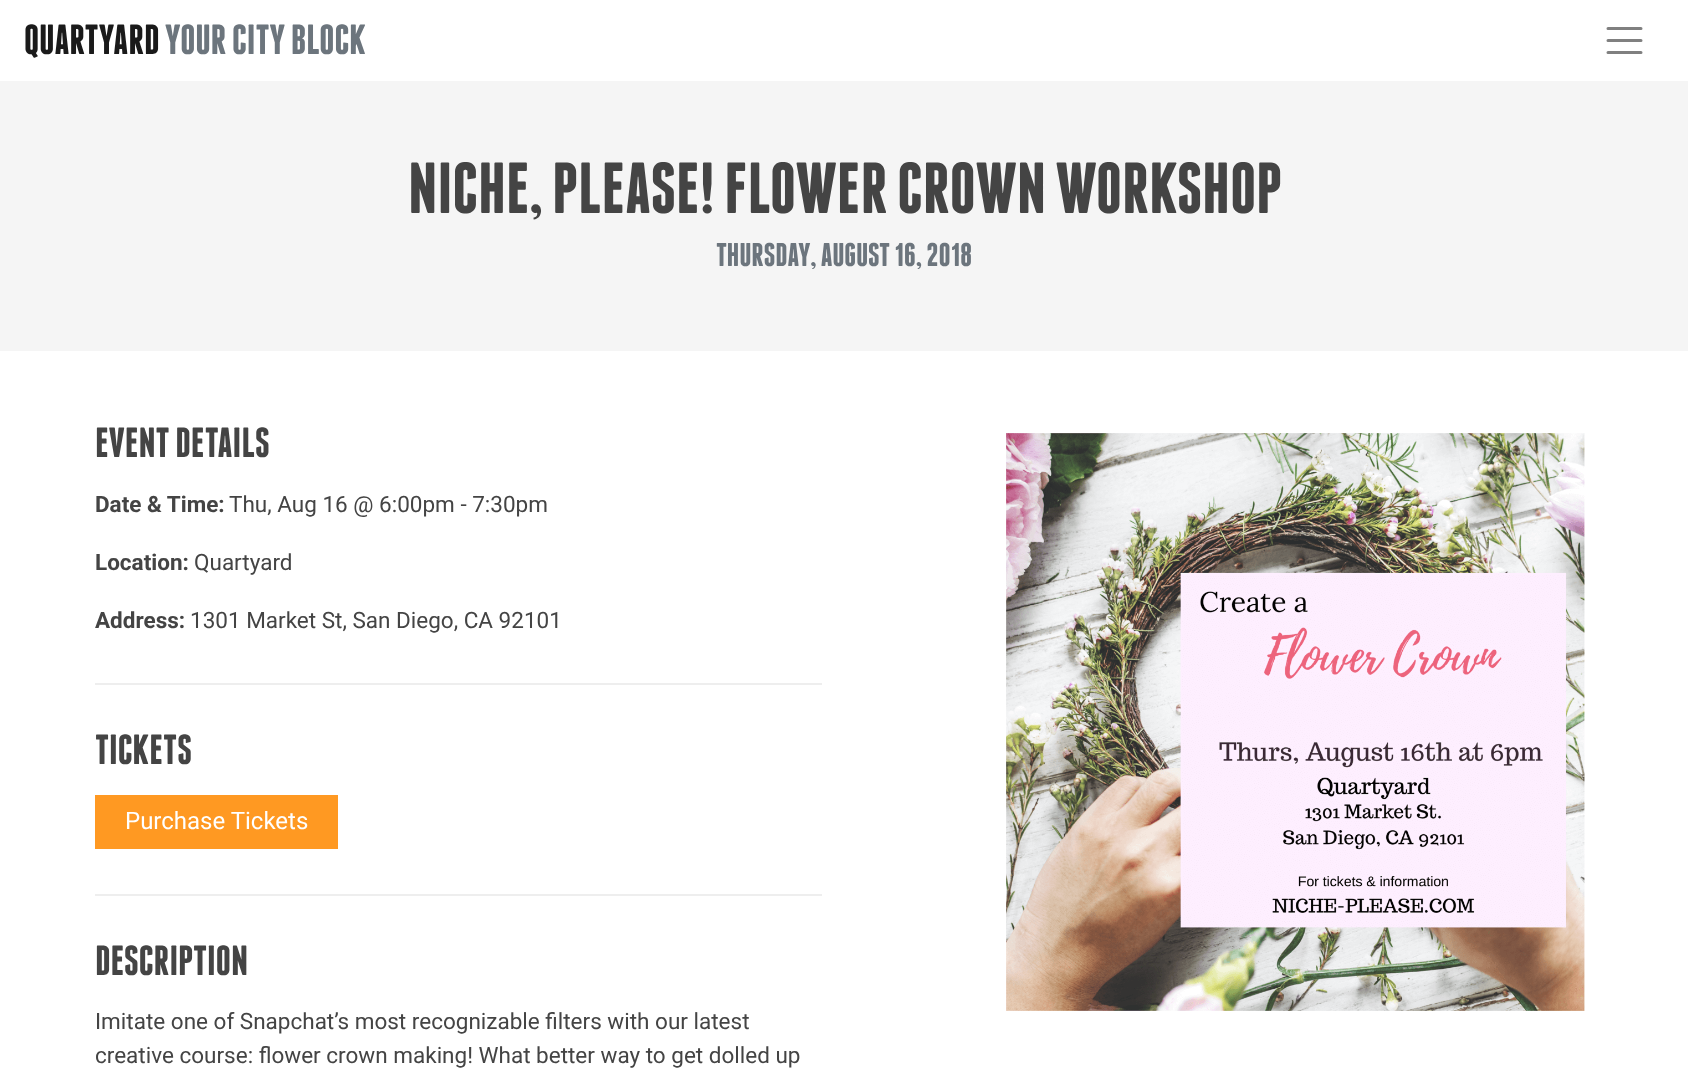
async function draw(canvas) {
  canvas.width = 1688
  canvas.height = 1073
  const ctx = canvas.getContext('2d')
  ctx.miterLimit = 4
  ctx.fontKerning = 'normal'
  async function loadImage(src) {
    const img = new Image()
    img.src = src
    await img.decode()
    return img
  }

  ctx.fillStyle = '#fff'
  ctx.fillRect(0, 0, 1688, 1073)
  ctx.font = 'bold 42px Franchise'
  ctx.fillStyle = '#1a1a1a'
  ctx.fillText('QUARTYARD', 24, 54)
  ctx.fillStyle = '#6c757d'
  ctx.fillText('YOUR CITY BLOCK', 165, 54)
  ctx.beginPath()
  ctx.moveTo(1608, 28.5)
  ctx.lineTo(1641, 28.5)
  ctx.moveTo(1608, 40.5)
  ctx.lineTo(1641, 40.5)
  ctx.moveTo(1608, 52.5)
  ctx.lineTo(1641, 52.5)
  ctx.strokeStyle = '#808080'
  ctx.lineWidth = 3
  ctx.lineCap = 'round'
  ctx.stroke()
  ctx.fillStyle = '#f5f5f5'
  ctx.fillRect(0, 81, 1688, 270)
  ctx.font = 'bold 72px Franchise'
  ctx.fillStyle = '#444'
  ctx.fillText('NICHE, PLEASE! FLOWER CROWN WORKSHOP', 408, 213)
  ctx.font = 'bold 33px Franchise'
  ctx.fillStyle = '#6c757d'
  ctx.fillText('THURSDAY, AUGUST 16, 2018', 716, 266)
  ctx.font = 'bold 42px Franchise'
  ctx.fillStyle = '#444'
  ctx.fillText('EVENT DETAILS', 95, 457)
  ctx.font = 'bold 22.5px Roboto'
  ctx.fillText('Date & Time:', 95, 512)
  ctx.font = '22.5px Roboto'
  ctx.fillText('Thu, Aug 16 @ 6:00pm - 7:30pm', 229, 512)
  ctx.font = 'bold 22.5px Roboto'
  ctx.fillText('Location:', 95, 570)
  ctx.font = '22.5px Roboto'
  ctx.fillText('Quartyard', 194, 570)
  ctx.font = 'bold 22.5px Roboto'
  ctx.fillText('Address:', 95, 628)
  ctx.font = '22.5px Roboto'
  ctx.fillText('1301 Market St, San Diego, CA 92101', 190, 628)
  ctx.fillStyle = '#eee'
  ctx.fillRect(95, 683, 727, 2)
  ctx.font = 'bold 42px Franchise'
  ctx.fillStyle = '#444'
  ctx.fillText('TICKETS', 95, 764)
  ctx.fillStyle = '#f92'
  ctx.fillRect(95, 795, 243, 54)
  ctx.font = '24px Roboto'
  ctx.fillStyle = '#fff'
  ctx.fillText('Purchase Tickets', 125, 829)
  ctx.fillStyle = '#eee'
  ctx.fillRect(95, 894, 727, 2)
  ctx.font = 'bold 42px Franchise'
  ctx.fillStyle = '#444'
  ctx.fillText('DESCRIPTION', 95, 975)
  ctx.font = '22.5px Roboto'
  ctx.fillText('Imitate one of Snapchat’s most recognizable filters with our latest', 95, 1029)
  ctx.fillText('creative course: flower crown making! What better way to get dolled up', 95, 1063)
  ctx.drawImage(await loadImage('image0.png'), 1006, 433, 579, 578)
}

draw(document.querySelector('canvas'))
